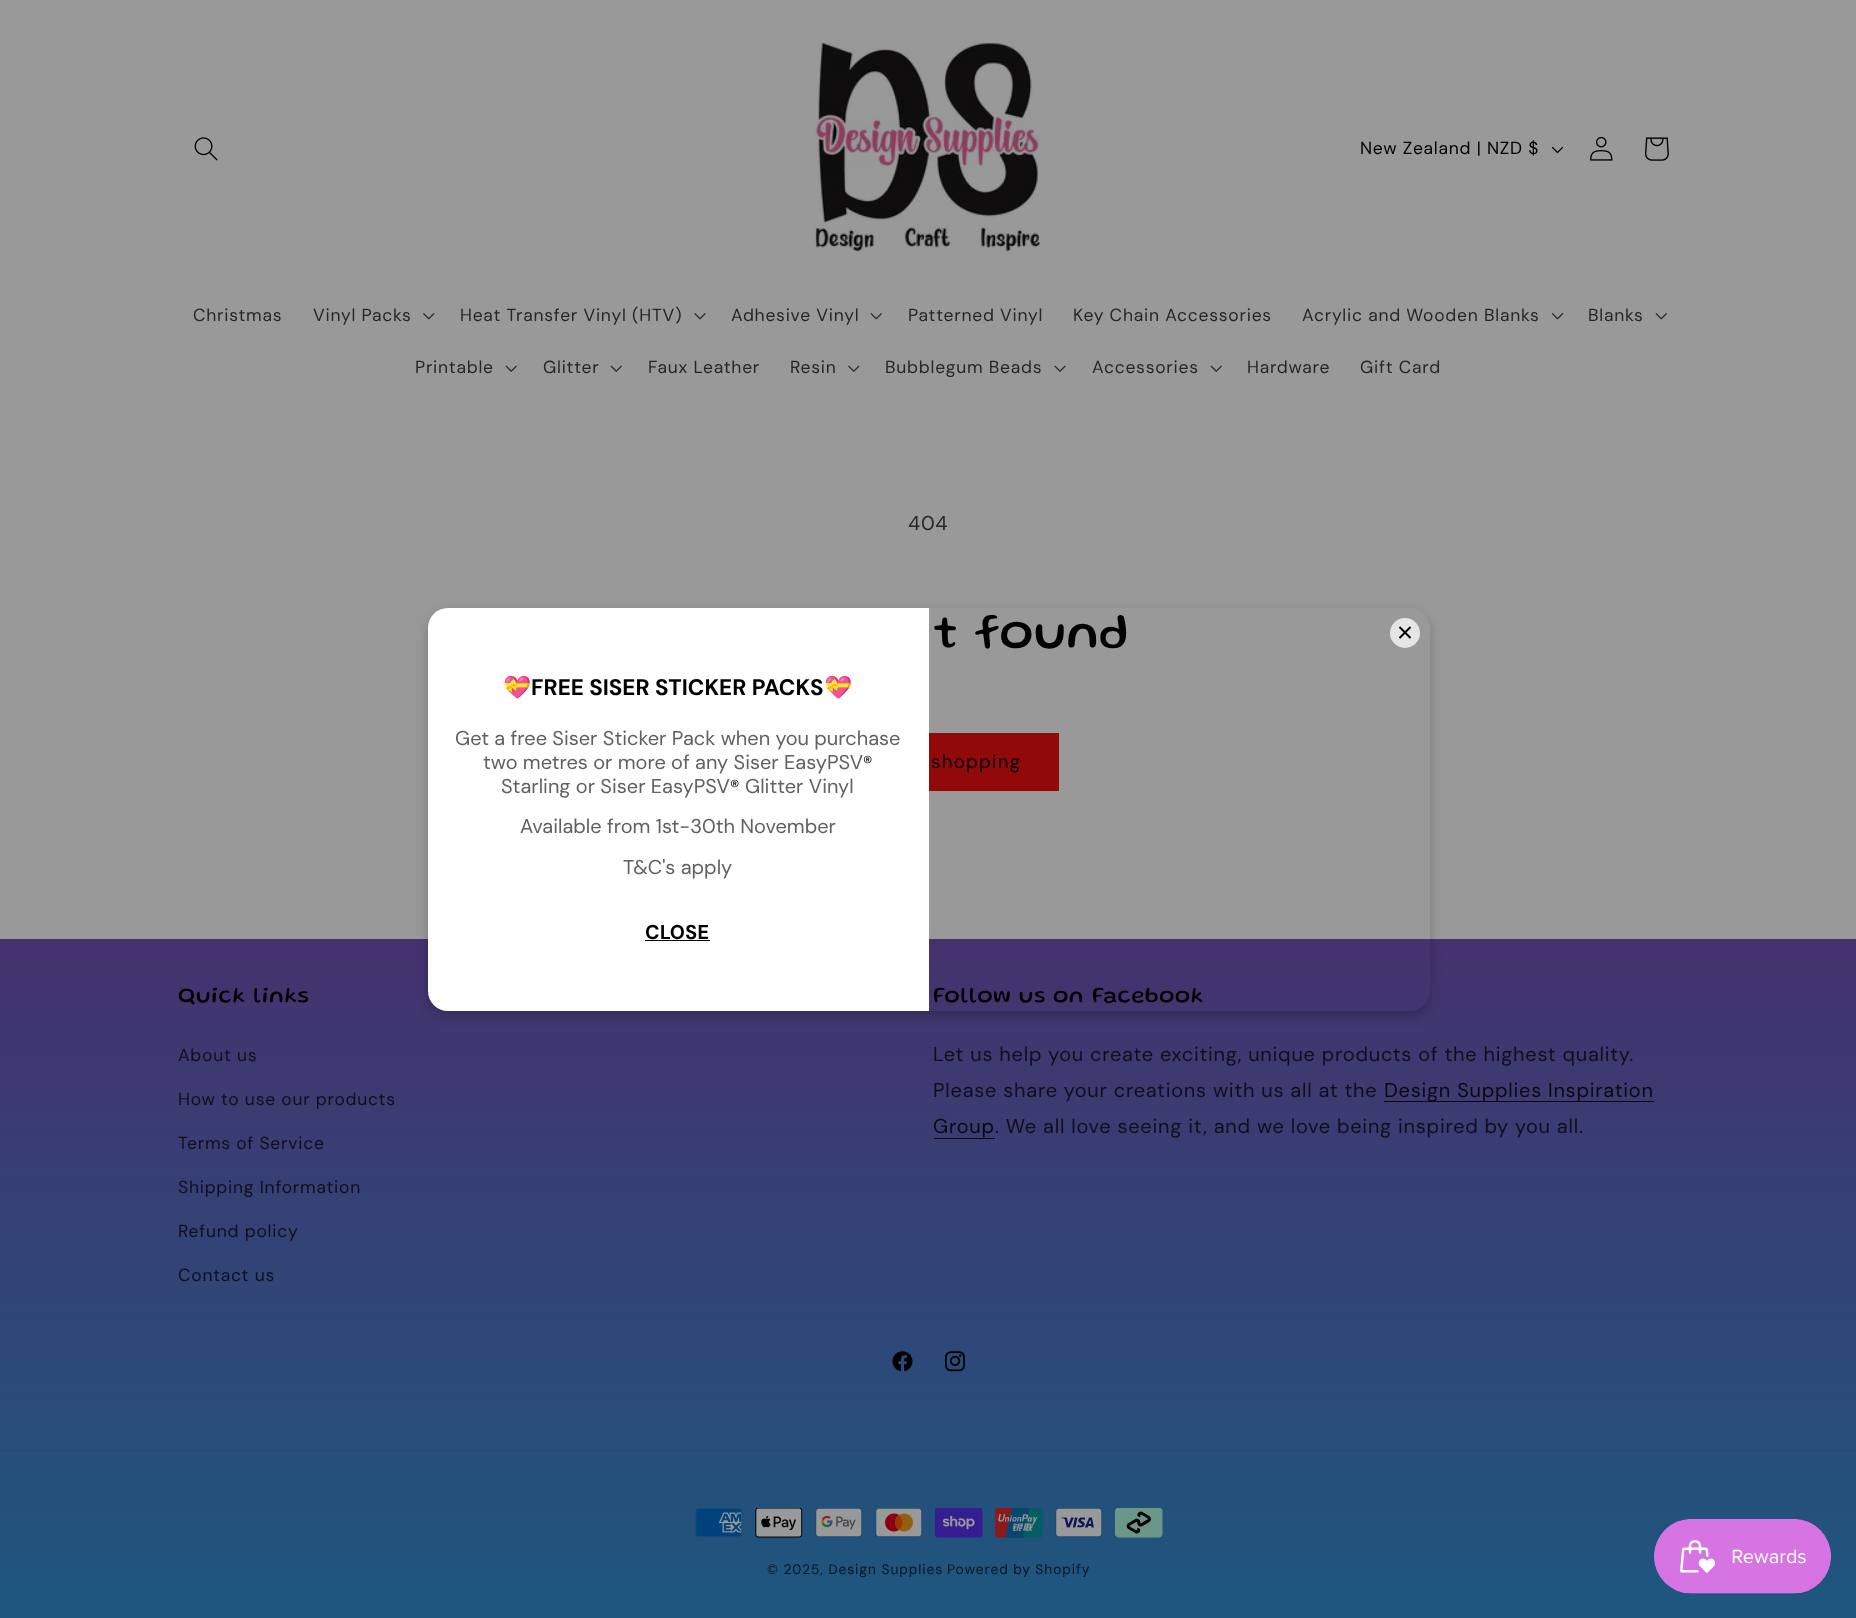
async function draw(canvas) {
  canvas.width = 1856
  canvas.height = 1618
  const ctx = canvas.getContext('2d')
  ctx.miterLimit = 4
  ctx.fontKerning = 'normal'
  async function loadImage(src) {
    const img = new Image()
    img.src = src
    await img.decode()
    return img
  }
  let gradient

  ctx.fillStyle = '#999'
  ctx.fillRect(0, 0, 1856, 1618)
  ctx.drawImage(await loadImage('image0.png'), 194, 137, 24, 24)
  ctx.drawImage(await loadImage('image1.png'), 814, 41, 230, 211)
  ctx.letterSpacing = '0.75px'
  ctx.font = '17.5px "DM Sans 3"'
  ctx.fillStyle = '#000'
  ctx.fillText('New Zealand | NZD $', 1360, 154)
  ctx.drawImage(await loadImage('image2.png'), 1551, 146, 13, 8)
  ctx.drawImage(await loadImage('image3.png'), 1590, 136, 23, 25)
  ctx.drawImage(await loadImage('image4.png'), 1645, 137, 24, 24)
  ctx.fillStyle = '#262626'
  ctx.fillText('Christmas', 193, 321)
  ctx.fillText('Vinyl Packs', 313, 321)
  ctx.drawImage(await loadImage('image5.png'), 423, 313, 12, 7)
  ctx.fillText('Heat Transfer Vinyl (HTV)', 460, 321)
  ctx.drawImage(await loadImage('image6.png'), 694, 313, 12, 7)
  ctx.fillText('Adhesive Vinyl', 731, 321)
  ctx.drawImage(await loadImage('image7.png'), 870, 313, 12, 7)
  ctx.fillText('Patterned Vinyl', 908, 321)
  ctx.fillText('Key Chain Accessories', 1073, 321)
  ctx.fillText('Acrylic and Wooden Blanks', 1302, 321)
  ctx.drawImage(await loadImage('image8.png'), 1551, 313, 13, 7)
  ctx.fillText('Blanks', 1588, 321)
  ctx.drawImage(await loadImage('image7.png'), 1655, 313, 12, 7)
  ctx.fillText('Printable', 415, 373)
  ctx.drawImage(await loadImage('image9.png'), 505, 365, 12, 7)
  ctx.fillText('Glitter', 543, 373)
  ctx.drawImage(await loadImage('image9.png'), 610, 365, 12, 7)
  ctx.fillText('Faux Leather', 648, 373)
  ctx.fillText('Resin', 790, 373)
  ctx.drawImage(await loadImage('image10.png'), 848, 365, 12, 7)
  ctx.fillText('Bubblegum Beads', 885, 373)
  ctx.drawImage(await loadImage('image11.png'), 1054, 365, 12, 7)
  ctx.fillText('Accessories', 1092, 373)
  ctx.drawImage(await loadImage('image9.png'), 1210, 365, 12, 7)
  ctx.fillText('Hardware', 1247, 373)
  ctx.fillText('Gift Card', 1360, 373)
  ctx.font = '20px DM Sans'
  ctx.fillText('404', 908, 530)
  ctx.font = '50px Gluten'
  ctx.fillStyle = '#000'
  ctx.fillText('t found', 933, 647)
  ctx.fillStyle = '#920909'
  ctx.fillRect(929, 733, 130, 58)
  ctx.letterSpacing = '1.25px'
  ctx.font = '18.75px "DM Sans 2"'
  ctx.fillStyle = '#000'
  ctx.fillText('shopping', 931, 768)
  gradient = ctx.createLinearGradient(928, 0, 928, 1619)
  gradient.addColorStop(0, '#971f64')
  gradient.addColorStop(0.5, '#4c2b6a')
  gradient.addColorStop(1, '#1d577f')
  ctx.fillStyle = gradient
  ctx.fillRect(0, 939, 1856, 679)
  ctx.save()
  ctx.beginPath()
  ctx.moveTo(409, 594)
  ctx.lineTo(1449, 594)
  ctx.lineTo(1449, 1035)
  ctx.lineTo(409, 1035)
  ctx.closePath()
  ctx.moveTo(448, 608)
  ctx.lineTo(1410, 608)
  ctx.bezierCurveTo(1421, 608, 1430, 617, 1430, 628)
  ctx.lineTo(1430, 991)
  ctx.bezierCurveTo(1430, 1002, 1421, 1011, 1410, 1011)
  ctx.lineTo(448, 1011)
  ctx.bezierCurveTo(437, 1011, 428, 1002, 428, 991)
  ctx.lineTo(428, 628)
  ctx.bezierCurveTo(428, 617, 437, 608, 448, 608)
  ctx.closePath()
  ctx.clip('evenodd')
  ctx.fillStyle = '#00000033'
  ctx.filter = 'blur(6px)'
  ctx.beginPath()
  ctx.roundRect(428, 613, 1002, 403, 20)
  ctx.fill()
  ctx.filter = 'none'
  ctx.restore()
  ctx.fillStyle = '#e5e5e5'
  ctx.beginPath()
  ctx.arc(1405, 633, 15, 0, 2 * Math.PI)
  ctx.fill()
  ctx.drawImage(await loadImage('image12.png'), 1399, 626, 12, 13)
  ctx.fillStyle = '#fff'
  ctx.beginPath()
  ctx.roundRect(428, 608, 501, 403, [20, 0, 0, 20])
  ctx.fill()
  ctx.letterSpacing = '0px'
  ctx.font = 'bold 22.5px Noto Color Emoji'
  ctx.fillStyle = '#000'
  ctx.fillText('💝', 503, 695)
  ctx.font = 'bold 22.5px DM Sans'
  ctx.fillText('FREE SISER STICKER PACKS', 531, 695)
  ctx.font = 'bold 22.5px Noto Color Emoji'
  ctx.fillText('💝', 824, 695)
  ctx.font = '20px DM Sans'
  ctx.fillStyle = '#616161'
  ctx.fillText('Get a free Siser Sticker Pack when you purchase', 455, 745)
  ctx.fillText('two metres or more of any Siser EasyPSV', 483, 769)
  ctx.font = '18.75px "DM Sans 2"'
  ctx.fillStyle = '#000'
  ctx.fillText('®', 863, 769)
  ctx.font = '20px DM Sans'
  ctx.fillStyle = '#616161'
  ctx.fillText('Starling or Siser EasyPSV', 501, 793)
  ctx.font = '18.75px "DM Sans 2"'
  ctx.fillStyle = '#000'
  ctx.fillText('®', 730, 793)
  ctx.font = '20px DM Sans'
  ctx.fillStyle = '#616161'
  ctx.fillText('Glitter Vinyl', 745, 793)
  ctx.fillText('Available from 1st-30th November', 520, 833)
  ctx.fillText('T&C\'s apply', 623, 874)
  ctx.font = 'bold 20px "DM Sans 2"'
  ctx.fillStyle = '#000'
  ctx.fillText('CLOSE', 645, 939)
  ctx.fillRect(645, 940, 65, 1)
  ctx.letterSpacing = '0.75px'
  ctx.font = '22.5px Gluten'
  ctx.fillText('Quick links', 178, 1002)
  ctx.font = '17.5px "DM Sans 3"'
  ctx.fillStyle = '#100e1c'
  ctx.fillText('About us', 178, 1061)
  ctx.fillText('How to use our products', 178, 1105)
  ctx.fillText('Terms of Service', 178, 1149)
  ctx.fillText('Shipping Information', 178, 1193)
  ctx.fillText('Refund policy', 178, 1237)
  ctx.fillText('Contact us', 178, 1281)
  ctx.font = '22.5px Gluten'
  ctx.fillStyle = '#000'
  ctx.fillText('Follow us on Facebook', 933, 1002)
  ctx.font = '20px DM Sans'
  ctx.fillStyle = '#100e1c'
  ctx.fillText('Let us help you create exciting, unique products of the highest quality.', 933, 1061)
  ctx.fillText('Please share your creations with us all at the', 933, 1097)
  ctx.fillStyle = '#090911'
  ctx.fillRect(1384, 1101, 270, 1)
  ctx.fillText('Design Supplies Inspiration', 1384, 1097)
  ctx.fillText('Group', 933, 1133)
  ctx.fillStyle = '#080911'
  ctx.fillRect(934, 1138, 61, 1)
  ctx.fillStyle = '#100e1c'
  ctx.fillText('. We all love seeing it, and we love being inspired by you all.', 995, 1133)
  ctx.drawImage(await loadImage('image13.png'), 892, 1351, 21, 21)
  ctx.drawImage(await loadImage('image14.png'), 945, 1351, 20, 21)
  ctx.fillStyle = '#234871'
  ctx.fillRect(0, 1450, 1856, 1)
  ctx.drawImage(await loadImage('image15.png'), 695, 1508, 48, 30)
  ctx.drawImage(await loadImage('image16.png'), 755, 1508, 48, 30)
  ctx.drawImage(await loadImage('image17.png'), 815, 1508, 48, 30)
  ctx.drawImage(await loadImage('image18.png'), 875, 1508, 48, 30)
  ctx.drawImage(await loadImage('image19.png'), 935, 1508, 48, 30)
  ctx.drawImage(await loadImage('image20.png'), 995, 1508, 48, 30)
  ctx.drawImage(await loadImage('image21.png'), 1055, 1508, 48, 30)
  ctx.drawImage(await loadImage('image22.png'), 1115, 1508, 48, 30)
  ctx.letterSpacing = '0.9px'
  ctx.font = '13.75px "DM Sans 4"'
  ctx.fillStyle = '#08151f'
  ctx.fillText('© 2025, Design Supplies', 767, 1574)
  ctx.fillText('Powered by Shopify', 947, 1574)
  ctx.drawImage(await loadImage('image23.png'), 1654, 1519, 177, 75)
}

draw(document.querySelector('canvas'))
